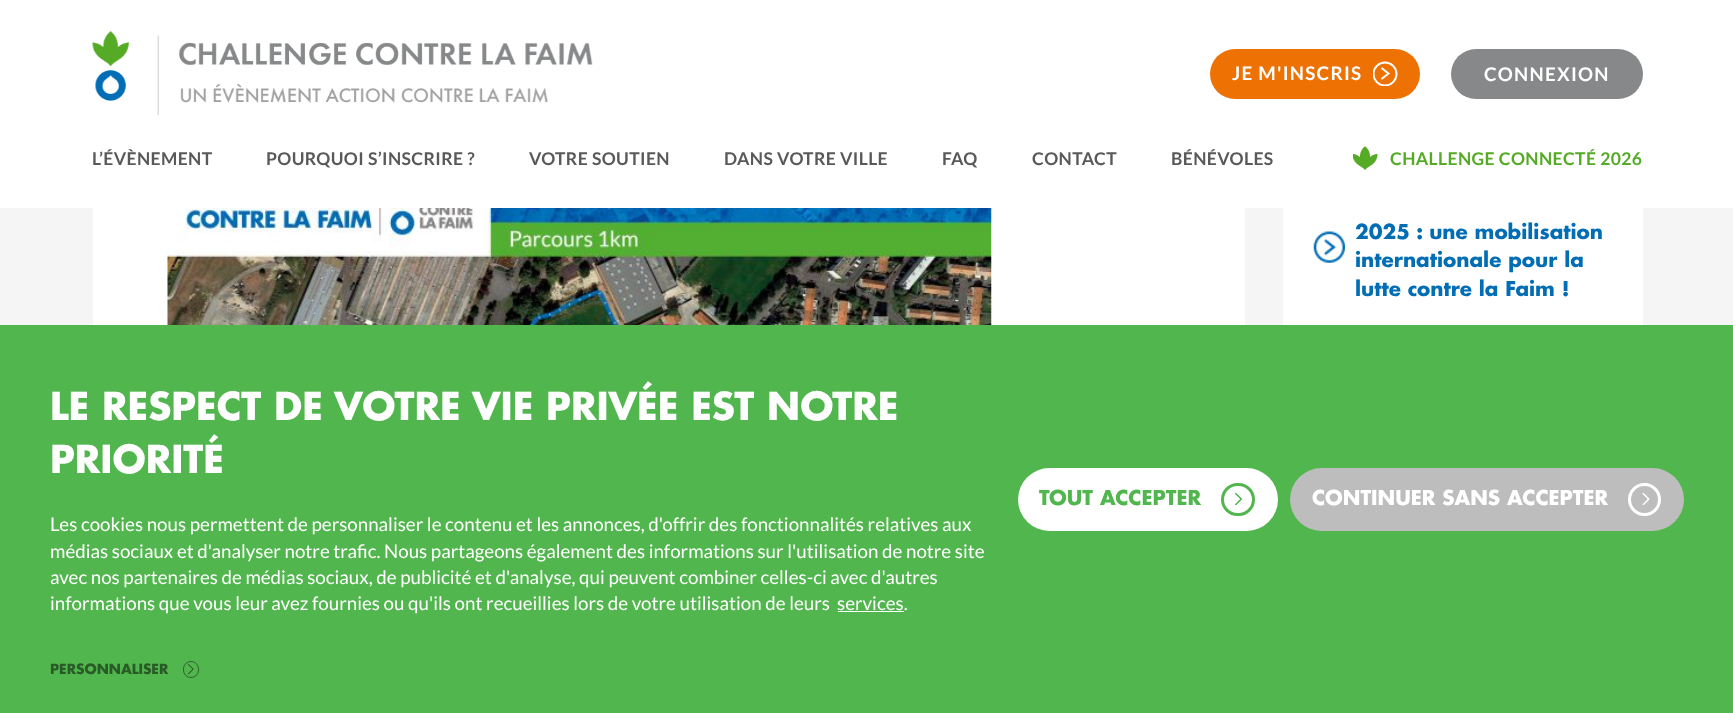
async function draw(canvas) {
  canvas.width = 1733
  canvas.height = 713
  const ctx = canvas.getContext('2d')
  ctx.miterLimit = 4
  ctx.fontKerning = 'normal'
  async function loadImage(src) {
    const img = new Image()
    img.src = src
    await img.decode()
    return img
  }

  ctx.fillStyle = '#f5f5f5'
  ctx.fillRect(0, 0, 1733, 713)
  ctx.fillStyle = '#fff'
  ctx.fillRect(0, 0, 1733, 208)
  ctx.drawImage(await loadImage('image0.png'), 92, 31, 501, 84)
  ctx.fillStyle = '#ee7203'
  ctx.beginPath()
  ctx.roundRect(1210, 49, 210, 50, 25)
  ctx.fill()
  ctx.letterSpacing = '1.25px'
  ctx.font = 'bold 18.75px Lato'
  ctx.fillStyle = '#fff'
  ctx.fillText('JE M\'INSCRIS', 1232, 80)
  ctx.save()
  ctx.beginPath()
  ctx.rect(1373, 61, 25, 25)
  ctx.clip()
  ctx.beginPath()
  ctx.arc(1385, 74, 11.5, 0, 2 * Math.PI)
  ctx.strokeStyle = '#fff'
  ctx.lineWidth = 2
  ctx.stroke()
  ctx.restore()
  ctx.beginPath()
  ctx.moveTo(1381.5, 68)
  ctx.lineTo(1388.5, 73.5)
  ctx.lineTo(1381.5, 79)
  ctx.strokeStyle = '#fff'
  ctx.lineWidth = 2
  ctx.stroke()
  ctx.fillStyle = '#868889'
  ctx.beginPath()
  ctx.roundRect(1451, 49, 192, 50, 25)
  ctx.fill()
  ctx.fillStyle = '#fff'
  ctx.fillText('CONNEXION', 1484, 81)
  ctx.letterSpacing = '0.4px'
  ctx.font = 'bold 17.5px Lato'
  ctx.fillStyle = '#595959'
  ctx.fillText('L’ÉVÈNEMENT', 92, 165)
  ctx.fillText('POURQUOI S’INSCRIRE ?', 266, 165)
  ctx.fillText('VOTRE SOUTIEN', 529, 165)
  ctx.fillText('DANS VOTRE VILLE', 724, 165)
  ctx.fillText('FAQ', 942, 165)
  ctx.fillText('CONTACT', 1032, 165)
  ctx.fillText('BÉNÉVOLES', 1171, 165)
  ctx.drawImage(await loadImage('image1.png'), 1353, 146, 25, 24)
  ctx.fillStyle = '#55ab26'
  ctx.fillText('CHALLENGE CONNECTÉ 2026', 1390, 165)
  ctx.fillStyle = '#fff'
  ctx.fillRect(93, 208, 1152, 117)
  ctx.drawImage(await loadImage('image2.png'), 167, 208, 825, 117)
  ctx.fillRect(1283, 208, 360, 117)
  ctx.drawImage(await loadImage('image3.png'), 1313, 231, 32, 32)
  ctx.letterSpacing = '0px'
  ctx.font = 'bold 20px Futura'
  ctx.fillStyle = '#006db5'
  ctx.fillText('2025 : une mobilisation', 1355, 239)
  ctx.fillText('internationale pour la', 1355, 267)
  ctx.fillText('lutte contre la Faim !', 1355, 296)
  ctx.fillStyle = '#52b64e'
  ctx.fillRect(0, 325, 1733, 388)
  ctx.font = 'bold 37.5px Futura'
  ctx.fillStyle = '#fff'
  ctx.fillText('LE RESPECT DE VOTRE VIE PRIVÉE EST NOTRE', 50, 420)
  ctx.fillText('PRIORITÉ', 50, 473)
  ctx.font = '18.75px Lato'
  ctx.fillText('Les cookies nous permettent de personnaliser le contenu et les annonces, d\'offrir des fonctionnalités relatives aux', 50, 531)
  ctx.fillText('médias sociaux et d\'analyser notre trafic. Nous partageons également des informations sur l\'utilisation de notre site', 50, 558)
  ctx.fillText('avec nos partenaires de médias sociaux, de publicité et d\'analyse, qui peuvent combiner celles-ci avec d\'autres', 50, 584)
  ctx.fillText('informations que vous leur avez fournies ou qu\'ils ont recueillies lors de votre utilisation de leurs', 50, 610)
  ctx.fillText('services.', 837, 610)
  ctx.fillRect(838, 611, 66, 1)
  ctx.beginPath()
  ctx.roundRect(1018, 468, 260, 63, 31.5)
  ctx.fill()
  ctx.font = 'bold 20px Futura'
  ctx.fillStyle = '#52b64e'
  ctx.fillText('TOUT ACCEPTER', 1039, 505)
  ctx.beginPath()
  ctx.roundRect(1222.5, 484.5, 31, 30, 15)
  ctx.strokeStyle = '#52b64e'
  ctx.lineWidth = 3
  ctx.stroke()
  ctx.drawImage(await loadImage('image4.png'), 1235, 493, 7, 12)
  ctx.fillStyle = '#bdbdbd'
  ctx.beginPath()
  ctx.roundRect(1290, 468, 394, 63, 31.5)
  ctx.fill()
  ctx.fillStyle = '#fff'
  ctx.fillText('CONTINUER SANS ACCEPTER', 1312, 505)
  ctx.beginPath()
  ctx.arc(1644.5, 499.5, 15, 0, 2 * Math.PI)
  ctx.strokeStyle = '#fff'
  ctx.stroke()
  ctx.drawImage(await loadImage('image5.png'), 1642, 493, 8, 12)
  ctx.font = 'bold 13.75px Futura'
  ctx.fillStyle = '#295b27'
  ctx.fillText('PERSONNALISER', 50, 674)
  ctx.beginPath()
  ctx.roundRect(183.45, 661.45, 15.1, 16.1, 7.55)
  ctx.strokeStyle = '#295b27'
  ctx.lineWidth = 0.9
  ctx.stroke()
  ctx.drawImage(await loadImage('image6.png'), 188, 664, 6, 11)
}

draw(document.querySelector('canvas'))
